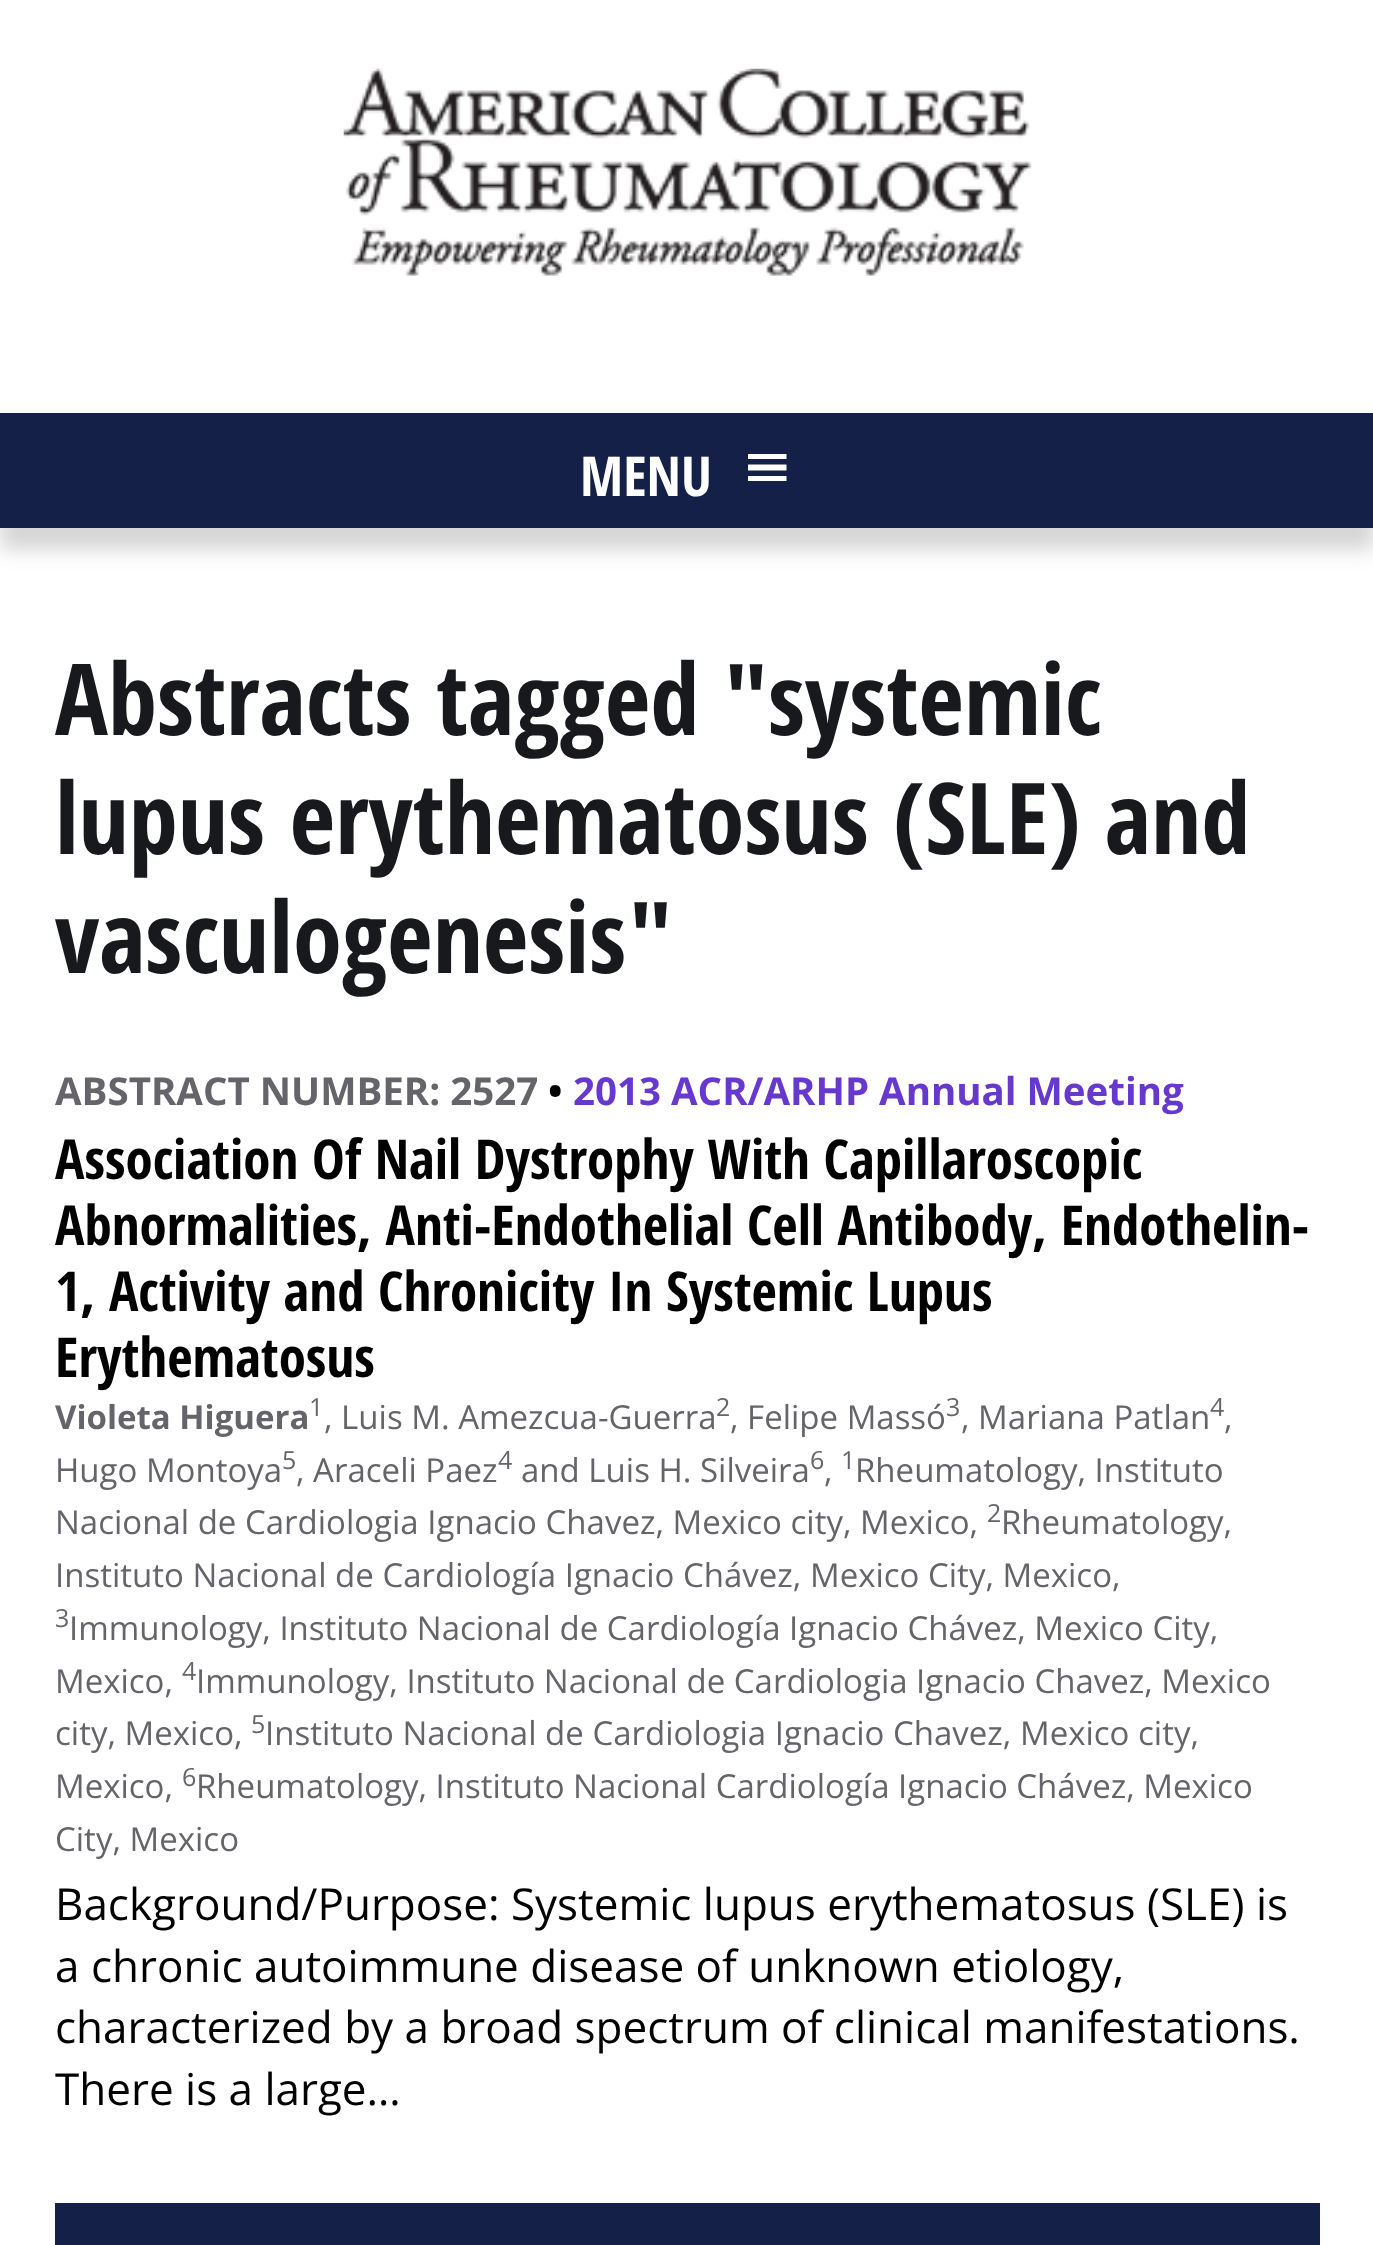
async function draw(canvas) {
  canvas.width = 1373
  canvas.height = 2245
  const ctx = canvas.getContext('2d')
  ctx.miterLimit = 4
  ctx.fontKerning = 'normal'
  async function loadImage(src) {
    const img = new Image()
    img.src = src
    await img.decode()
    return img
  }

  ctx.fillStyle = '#fff'
  ctx.fillRect(0, 0, 1373, 2245)
  ctx.drawImage(await loadImage('image0.png'), 343, 68, 689, 208)
  ctx.fillStyle = '#32323233'
  ctx.filter = 'blur(9.5px)'
  ctx.beginPath()
  ctx.rect(0, 435, 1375, 115)
  ctx.fill()
  ctx.filter = 'none'
  ctx.fillStyle = '#142048'
  ctx.fillRect(0, 413, 1373, 115)
  ctx.font = 'bold 55px Open Sans Condensed'
  ctx.fillStyle = '#fff'
  ctx.fillText('MENU', 580, 496)
  ctx.beginPath()
  ctx.moveTo(748, 481)
  ctx.lineTo(786.5, 481)
  ctx.lineTo(786.5, 476)
  ctx.lineTo(748, 476)
  ctx.closePath()
  ctx.moveTo(748, 454)
  ctx.lineTo(748, 459)
  ctx.lineTo(786.5, 459)
  ctx.lineTo(786.5, 454)
  ctx.closePath()
  ctx.moveTo(748, 470.5)
  ctx.lineTo(786.5, 470.5)
  ctx.lineTo(786.5, 464.5)
  ctx.lineTo(748, 464.5)
  ctx.closePath()
  ctx.fill()
  ctx.font = 'bold 99px Open Sans Condensed'
  ctx.fillStyle = '#17191c'
  ctx.fillText('Abstracts tagged "systemic', 55, 735)
  ctx.fillText('lupus erythematosus (SLE) and', 55, 854)
  ctx.fillText('vasculogenesis"', 55, 973)
  ctx.font = 'bold 38.5px Open Sans'
  ctx.fillStyle = '#65646a'
  ctx.fillText('ABSTRACT NUMBER: 2527', 55, 1105)
  ctx.fillStyle = '#000'
  ctx.fillText('•', 548, 1105)
  ctx.fillStyle = '#6738cd'
  ctx.fillText('2013 ACR/ARHP Annual Meeting', 573, 1105)
  ctx.font = 'bold 55px Open Sans Condensed'
  ctx.fillStyle = '#000'
  ctx.fillText('Association Of Nail Dystrophy With Capillaroscopic', 55, 1179)
  ctx.fillText('Abnormalities, Anti-Endothelial Cell Antibody, Endothelin-', 55, 1245)
  ctx.fillText('1, Activity and Chronicity In Systemic Lupus', 55, 1311)
  ctx.fillText('Erythematosus', 55, 1377)
  ctx.font = 'bold 33px Open Sans'
  ctx.fillStyle = '#65646a'
  ctx.fillText('Violeta Higuera', 55, 1429)
  ctx.font = '25px Open Sans'
  ctx.fillText('1', 309, 1416)
  ctx.font = '33px Open Sans'
  ctx.fillText(', Luis M. Amezcua-Guerra', 324, 1429)
  ctx.font = '25px Open Sans'
  ctx.fillText('2', 716, 1416)
  ctx.font = '33px Open Sans'
  ctx.fillText(', Felipe Massó', 730, 1429)
  ctx.font = '25px Open Sans'
  ctx.fillText('3', 946, 1416)
  ctx.font = '33px Open Sans'
  ctx.fillText(', Mariana Patlan', 961, 1429)
  ctx.font = '25px Open Sans'
  ctx.fillText('4', 1210, 1416)
  ctx.font = '33px Open Sans'
  ctx.fillText(',', 1224, 1429)
  ctx.fillText('Hugo Montoya', 55, 1482)
  ctx.font = '25px Open Sans'
  ctx.fillText('5', 282, 1469)
  ctx.font = '33px Open Sans'
  ctx.fillText(', Araceli Paez', 296, 1482)
  ctx.font = '25px Open Sans'
  ctx.fillText('4', 498, 1469)
  ctx.font = '33px Open Sans'
  ctx.fillText('and Luis H. Silveira', 521, 1482)
  ctx.font = '25px Open Sans'
  ctx.fillText('6', 810, 1469)
  ctx.font = '33px Open Sans'
  ctx.fillText(',', 824, 1482)
  ctx.font = '25px Open Sans'
  ctx.fillText('1', 841, 1469)
  ctx.font = '33px Open Sans'
  ctx.fillText('Rheumatology, Instituto', 855, 1482)
  ctx.fillText('Nacional de Cardiologia Ignacio Chavez, Mexico city, Mexico,', 55, 1534)
  ctx.font = '25px Open Sans'
  ctx.fillText('2', 987, 1522)
  ctx.font = '33px Open Sans'
  ctx.fillText('Rheumatology,', 1001, 1534)
  ctx.fillText('Instituto Nacional de Cardiología Ignacio Chávez, Mexico City, Mexico,', 55, 1587)
  ctx.font = '25px Open Sans'
  ctx.fillText('3', 55, 1627)
  ctx.font = '33px Open Sans'
  ctx.fillText('Immunology, Instituto Nacional de Cardiología Ignacio Chávez, Mexico City,', 69, 1640)
  ctx.fillText('Mexico,', 55, 1693)
  ctx.font = '25px Open Sans'
  ctx.fillText('4', 182, 1680)
  ctx.font = '33px Open Sans'
  ctx.fillText('Immunology, Instituto Nacional de Cardiologia Ignacio Chavez, Mexico', 196, 1693)
  ctx.fillText('city, Mexico,', 55, 1745)
  ctx.font = '25px Open Sans'
  ctx.fillText('5', 251, 1733)
  ctx.font = '33px Open Sans'
  ctx.fillText('Instituto Nacional de Cardiologia Ignacio Chavez, Mexico city,', 265, 1745)
  ctx.fillText('Mexico,', 55, 1798)
  ctx.font = '25px Open Sans'
  ctx.fillText('6', 182, 1786)
  ctx.font = '33px Open Sans'
  ctx.fillText('Rheumatology, Instituto Nacional Cardiología Ignacio Chávez, Mexico', 196, 1798)
  ctx.fillText('City, Mexico', 55, 1851)
  ctx.font = '44px Open Sans'
  ctx.fillStyle = '#000'
  ctx.fillText('Background/Purpose: Systemic lupus erythematosus (SLE) is', 55, 1920)
  ctx.fillText('a chronic autoimmune disease of unknown etiology,', 55, 1982)
  ctx.fillText('characterized by a broad spectrum of clinical manifestations.', 55, 2043)
  ctx.fillText('There is a large…', 55, 2105)
  ctx.fillStyle = '#142048'
  ctx.fillRect(55, 2203, 1265, 42)
}

draw(document.querySelector('canvas'))
